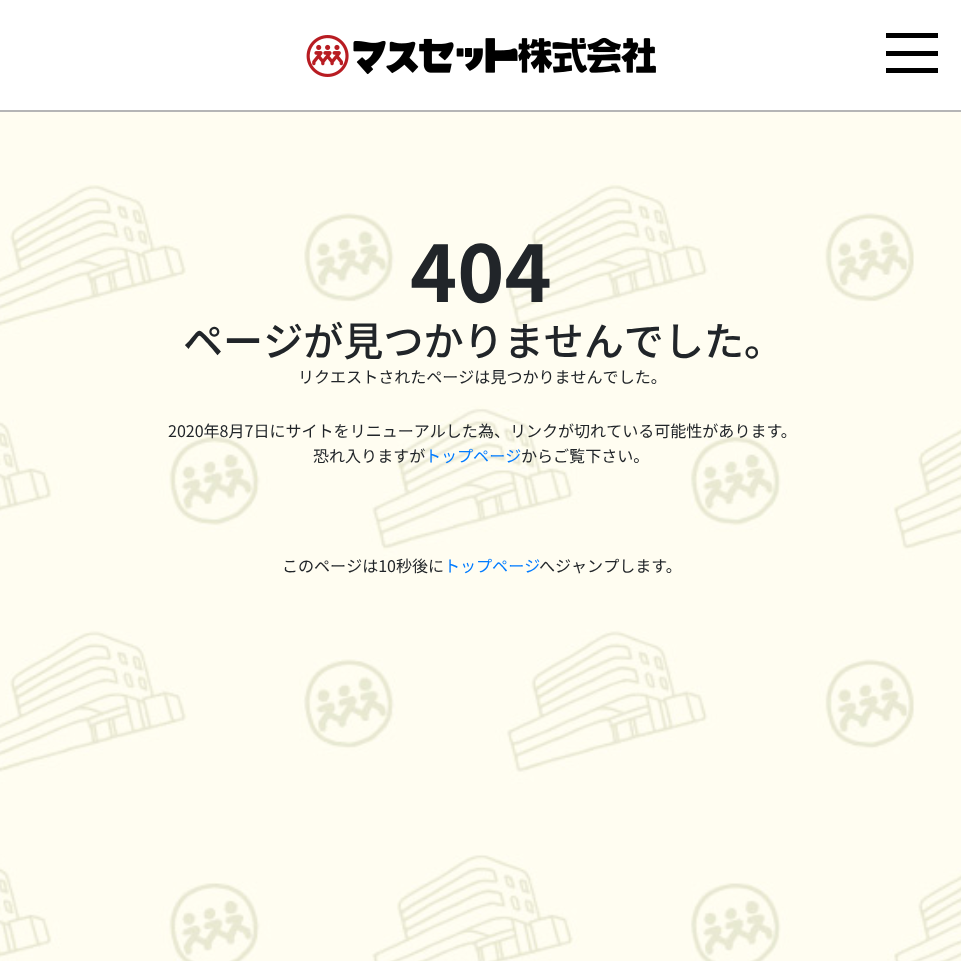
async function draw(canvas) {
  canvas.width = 961
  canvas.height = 961
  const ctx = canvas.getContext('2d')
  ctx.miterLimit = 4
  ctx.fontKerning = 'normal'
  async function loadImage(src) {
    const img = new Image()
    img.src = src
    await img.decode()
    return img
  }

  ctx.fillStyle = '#fff'
  ctx.fillRect(0, 0, 961, 961)
  ctx.drawImage(await loadImage('image0.png'), 0, 112, 961, 849)
  ctx.fillStyle = '#b5b5b6'
  ctx.fillRect(0, 110, 961, 2)
  ctx.drawImage(await loadImage('image1.png'), 306, 35, 350, 42)
  ctx.fillStyle = '#000'
  ctx.fillRect(886, 33, 52, 5)
  ctx.fillRect(886, 51, 52, 5)
  ctx.fillRect(886, 68, 52, 5)
  ctx.font = 'bold 80px Noto Sans JP'
  ctx.fillStyle = '#212529'
  ctx.fillText('404', 410, 302)
  ctx.font = '500 40.1px Noto Sans JP'
  ctx.fillText('ページが見つかりませんでした。', 183, 356)
  ctx.font = '16.05px Noto Sans JP'
  ctx.fillText('リクエストされたページは見つかりませんでした。', 298, 383)
  ctx.fillText('2020年8月7日にサイトをリニューアルした為、リンクが切れている可能性があります。', 168, 437)
  ctx.fillText('恐れ入りますが', 313, 462)
  ctx.fillStyle = '#007bff'
  ctx.fillText('トップページ', 425, 462)
  ctx.fillStyle = '#212529'
  ctx.fillText('からご覧下さい。', 521, 462)
  ctx.fillText('このページは10秒後に', 282, 572)
  ctx.fillStyle = '#007bff'
  ctx.fillText('トップページ', 444, 572)
  ctx.fillStyle = '#212529'
  ctx.fillText('へジャンプします。', 539, 572)
}

draw(document.querySelector('canvas'))
